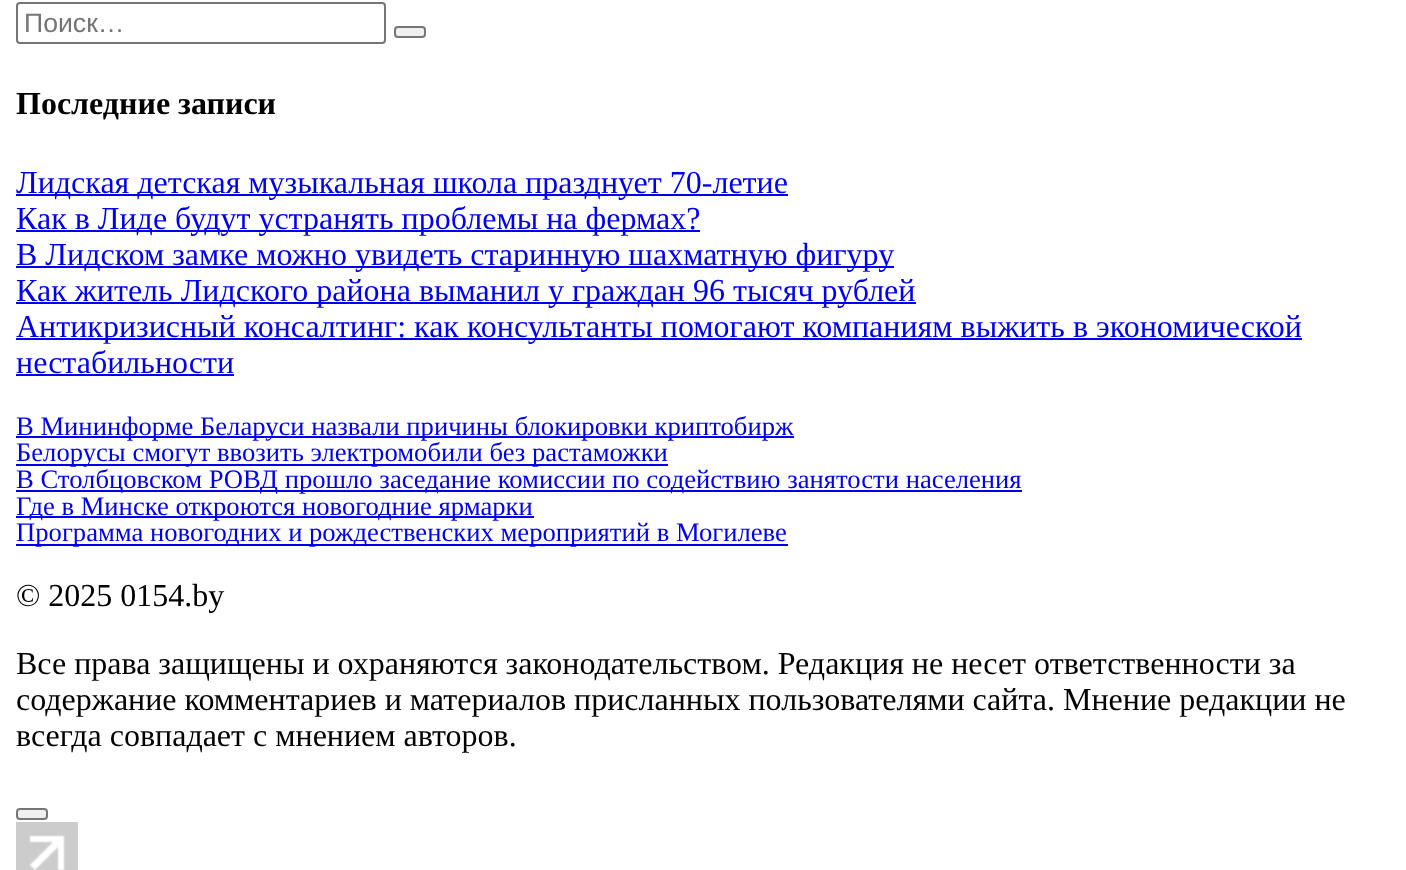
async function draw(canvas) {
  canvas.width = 1406
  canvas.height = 870
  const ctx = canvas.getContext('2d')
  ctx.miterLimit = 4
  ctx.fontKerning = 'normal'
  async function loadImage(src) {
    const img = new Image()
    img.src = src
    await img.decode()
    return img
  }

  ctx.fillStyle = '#fff'
  ctx.fillRect(0, 0, 1406, 870)
  ctx.beginPath()
  ctx.roundRect(17, 3, 368, 40, 3)
  ctx.strokeStyle = '#767676'
  ctx.lineWidth = 2
  ctx.stroke()
  ctx.font = '26.65px Liberation Sans'
  ctx.fillStyle = '#757575'
  ctx.fillText('Поиск…', 24, 32)
  ctx.fillStyle = '#efefef'
  ctx.beginPath()
  ctx.roundRect(395, 27, 30, 10, 3)
  ctx.fill()
  ctx.stroke()
  ctx.font = 'bold 32px Liberation Serif'
  ctx.fillStyle = '#000'
  ctx.fillText('Последние записи', 16, 114)
  ctx.fillStyle = '#00e'
  ctx.fillRect(16, 194, 772, 2)
  ctx.font = '32px Liberation Serif'
  ctx.fillText('Лидская детская музыкальная школа празднует 70-летие', 16, 193)
  ctx.fillRect(16, 230, 684, 2)
  ctx.fillText('Как в Лиде будут устранять проблемы на фермах?', 16, 229)
  ctx.fillRect(16, 266, 878, 2)
  ctx.fillText('В Лидском замке можно увидеть старинную шахматную фигуру', 16, 265)
  ctx.fillRect(16, 302, 900, 2)
  ctx.fillText('Как житель Лидского района выманил у граждан 96 тысяч рублей', 16, 301)
  ctx.fillRect(16, 338, 1286, 2)
  ctx.fillText('Антикризисный консалтинг: как консультанты помогают компаниям выжить в экономической', 16, 337)
  ctx.fillText('нестабильности', 16, 373)
  ctx.fillRect(16, 374, 218, 2)
  ctx.fillRect(16, 436, 778, 2)
  ctx.font = '26.65px Liberation Serif'
  ctx.fillText('В Мининформе Беларуси назвали причины блокировки криптобирж', 16, 435)
  ctx.fillRect(16, 464, 652, 2)
  ctx.fillText('Белорусы смогут ввозить электромобили без растаможки', 16, 461)
  ctx.fillRect(16, 490, 1006, 2)
  ctx.fillText('В Столбцовском РОВД прошло заседание комиссии по содействию занятости населения', 16, 488)
  ctx.fillRect(16, 516, 518, 2)
  ctx.fillText('Где в Минске откроются новогодние ярмарки', 16, 515)
  ctx.fillRect(16, 544, 772, 2)
  ctx.fillText('Программа новогодних и рождественских мероприятий в Могилеве', 16, 541)
  ctx.font = '32px Liberation Serif'
  ctx.fillStyle = '#000'
  ctx.fillText('© 2025 0154.by', 16, 606)
  ctx.fillText('Все права защищены и охраняются законодательством. Редакция не несет ответственности за', 16, 674)
  ctx.fillText('содержание комментариев и материалов присланных пользователями сайта. Мнение редакции не', 16, 710)
  ctx.fillText('всегда совпадает с мнением авторов.', 16, 746)
  ctx.fillStyle = '#efefef'
  ctx.beginPath()
  ctx.roundRect(17, 809, 30, 10, 3)
  ctx.fill()
  ctx.stroke()
  ctx.drawImage(await loadImage('image0.png'), 16, 822, 62, 48)
}

draw(document.querySelector('canvas'))
